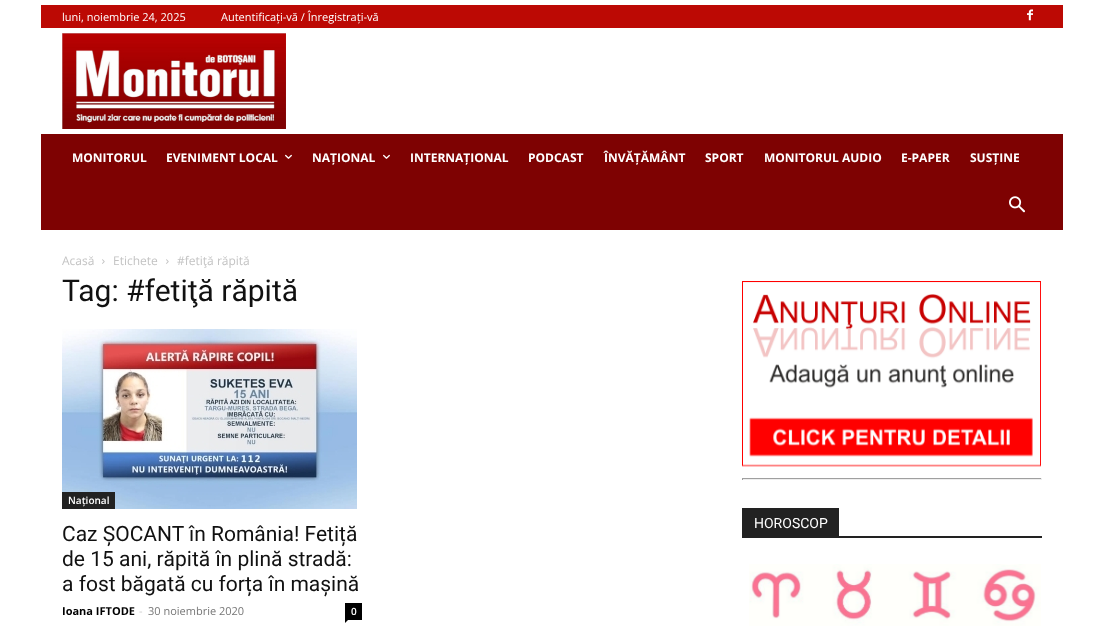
async function draw(canvas) {
  canvas.width = 1103
  canvas.height = 629
  const ctx = canvas.getContext('2d')
  ctx.miterLimit = 4
  ctx.fontKerning = 'normal'
  async function loadImage(src) {
    const img = new Image()
    img.src = src
    await img.decode()
    return img
  }

  ctx.fillStyle = '#fff'
  ctx.fillRect(0, 0, 1103, 629)
  ctx.fillStyle = '#bc0904'
  ctx.fillRect(41, 5, 1022, 23)
  ctx.font = '11px Open Sans'
  ctx.fillStyle = '#fff'
  ctx.fillText('luni, noiembrie 24, 2025', 62, 21)
  ctx.fillText('Autentificați-vă / Înregistrați-vă', 221, 21)
  ctx.drawImage(await loadImage('image0.png'), 1027, 9, 6, 12)
  ctx.drawImage(await loadImage('image1.png'), 62, 33, 224, 96)
  ctx.fillStyle = '#7e0202'
  ctx.fillRect(41, 134, 1022, 96)
  ctx.font = 'bold 12px Open Sans'
  ctx.fillStyle = '#fff'
  ctx.fillText('MONITORUL', 72, 162)
  ctx.fillText('EVENIMENT LOCAL', 166, 162)
  ctx.drawImage(await loadImage('image2.png'), 285, 154, 7, 5)
  ctx.fillText('NAȚIONAL', 312, 162)
  ctx.drawImage(await loadImage('image2.png'), 383, 154, 7, 5)
  ctx.fillText('INTERNAȚIONAL', 410, 162)
  ctx.fillText('PODCAST', 528, 162)
  ctx.fillText('ÎNVĂȚĂMÂNT', 604, 162)
  ctx.fillText('SPORT', 705, 162)
  ctx.fillText('MONITORUL AUDIO', 764, 162)
  ctx.fillText('E-PAPER', 901, 162)
  ctx.fillText('SUSȚINE', 970, 162)
  ctx.drawImage(await loadImage('image3.png'), 1009, 196, 16, 17)
  ctx.font = '12px Open Sans'
  ctx.fillStyle = '#c3c3c3'
  ctx.fillText('Acasă', 62, 265)
  ctx.drawImage(await loadImage('image4.png'), 102, 259, 3, 5)
  ctx.fillText('Etichete', 113, 265)
  ctx.drawImage(await loadImage('image4.png'), 166, 259, 3, 5)
  ctx.fillText('#fetiţă răpită', 177, 265)
  ctx.font = '30px Roboto'
  ctx.fillStyle = '#111'
  ctx.fillText('Tag: #fetiţă răpită', 62, 301)
  ctx.drawImage(await loadImage('image5.png'), 62, 329, 295, 180)
  ctx.fillStyle = '#222'
  ctx.fillRect(62, 492, 53, 17)
  ctx.font = '600 10px Open Sans'
  ctx.fillStyle = '#fff'
  ctx.fillText('Național', 68, 504)
  ctx.font = '21px Roboto'
  ctx.fillStyle = '#111'
  ctx.fillText('Caz ȘOCANT în România! Fetiță', 62, 541)
  ctx.fillText('de 15 ani, răpită în plină stradă:', 62, 566)
  ctx.fillText('a fost băgată cu forța în mașină', 62, 591)
  ctx.font = 'bold 11px Open Sans'
  ctx.fillStyle = '#000'
  ctx.fillText('Ioana IFTODE', 62, 615)
  ctx.font = '11px Open Sans'
  ctx.fillStyle = '#ccc'
  ctx.fillText('-', 139, 615)
  ctx.fillStyle = '#767676'
  ctx.fillText('30 noiembrie 2020', 148, 615)
  ctx.fillStyle = '#000'
  ctx.fillRect(345, 603, 17, 17)
  ctx.font = '600 10px Open Sans'
  ctx.fillStyle = '#fff'
  ctx.fillText('0', 351, 615)
  ctx.fillStyle = '#000'
  ctx.beginPath()
  ctx.moveTo(345, 620)
  ctx.lineTo(348, 620)
  ctx.lineTo(345, 623)
  ctx.closePath()
  ctx.fill()
  ctx.drawImage(await loadImage('image6.png'), 742, 281, 299, 186)
  ctx.fillStyle = '#9f9f9f'
  ctx.fillRect(742, 478, 300, 1)
  ctx.fillStyle = '#eee'
  ctx.fillRect(1041, 478, 1, 2)
  ctx.fillRect(742, 479, 300, 1)
  ctx.fillStyle = '#9f9f9f'
  ctx.fillRect(742, 478, 1, 2)
  ctx.fillStyle = '#222'
  ctx.fillRect(742, 536, 300, 2)
  ctx.fillRect(742, 508, 97, 28)
  ctx.font = '14px Roboto'
  ctx.fillStyle = '#fff'
  ctx.fillText('HOROSCOP', 754, 528)
  ctx.drawImage(await loadImage('image7.png'), 749, 564, 292, 62)
}

draw(document.querySelector('canvas'))
